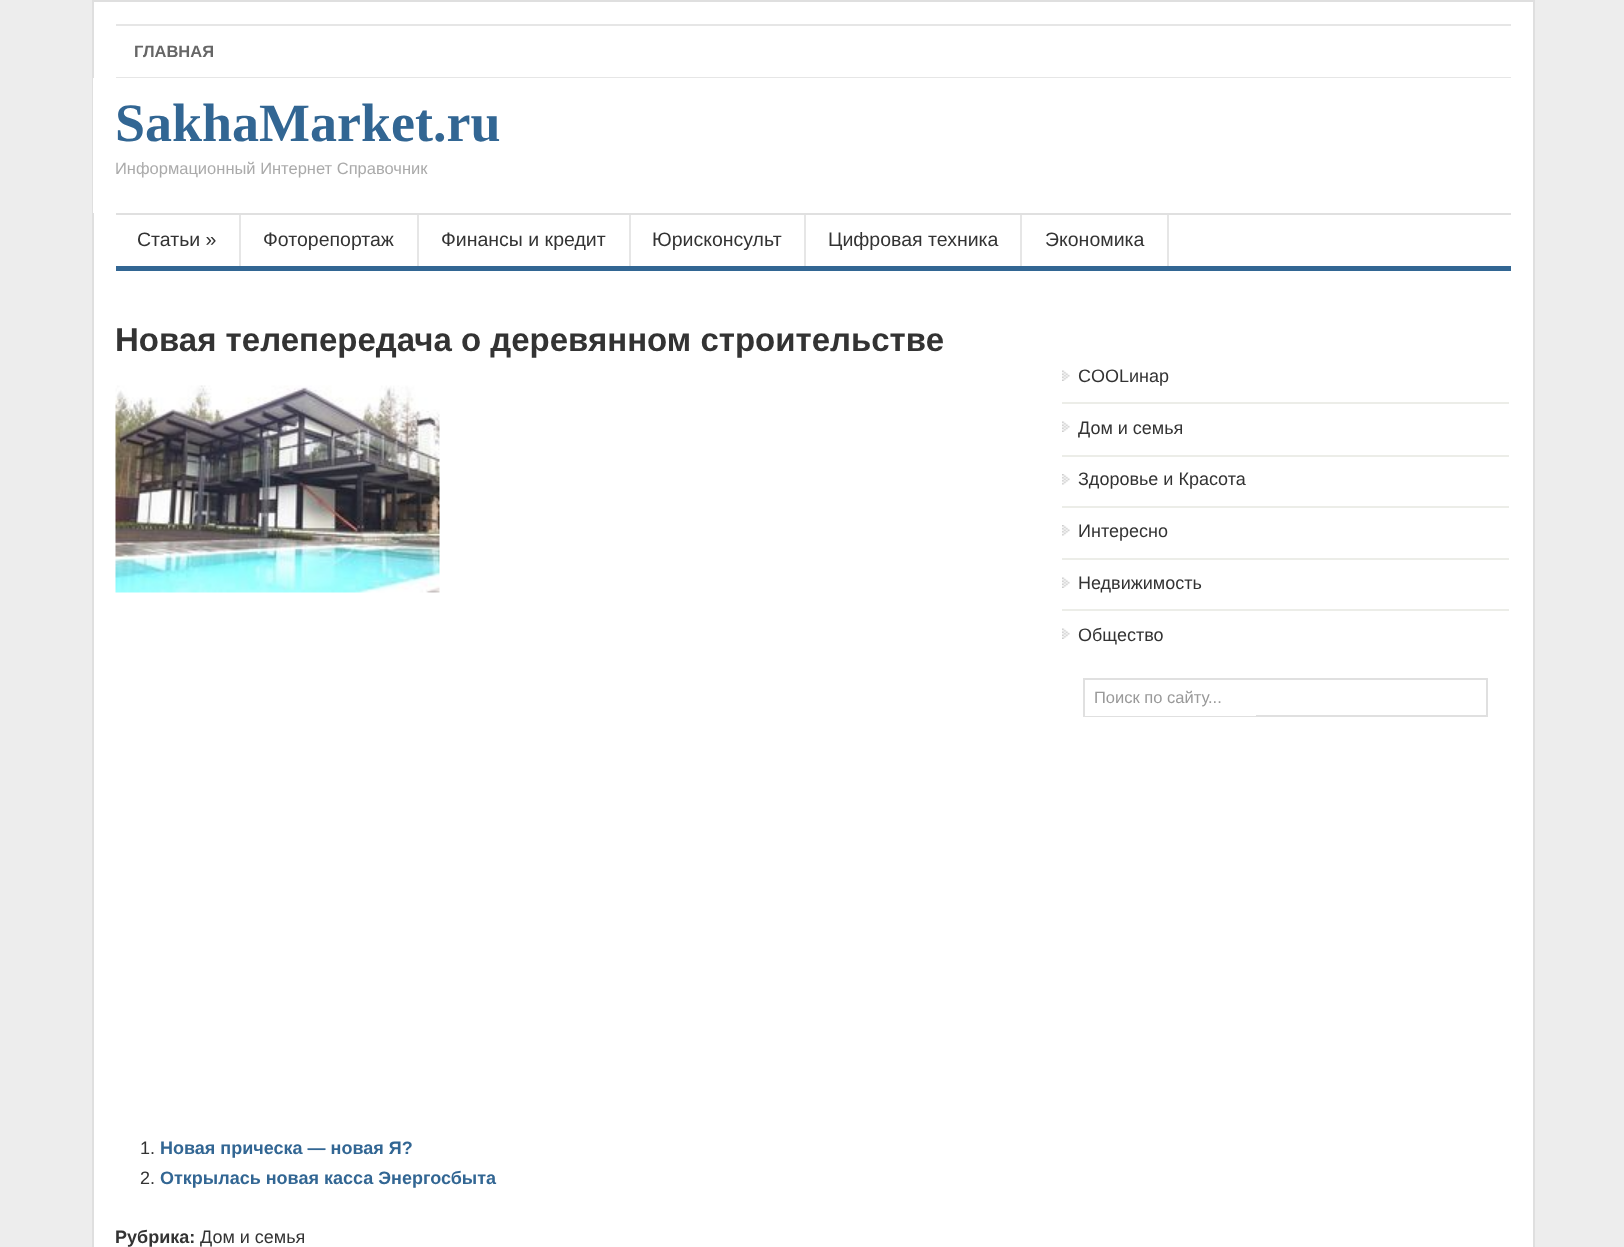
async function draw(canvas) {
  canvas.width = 1624
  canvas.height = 1247
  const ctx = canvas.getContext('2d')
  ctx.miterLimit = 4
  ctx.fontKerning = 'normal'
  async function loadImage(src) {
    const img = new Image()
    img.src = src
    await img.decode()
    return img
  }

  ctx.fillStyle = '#ededed'
  ctx.fillRect(0, 0, 1624, 1247)
  ctx.fillStyle = '#fff'
  ctx.beginPath()
  ctx.rect(93, 1, 1441, 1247)
  ctx.fill()
  ctx.strokeStyle = '#dfdfdf'
  ctx.lineWidth = 2
  ctx.stroke()
  ctx.fillStyle = '#e6e6e6'
  ctx.fillRect(116, 24, 1395, 2)
  ctx.fillRect(116, 77, 1395, 1)
  ctx.font = 'bold 16.5px Liberation Sans'
  ctx.fillStyle = '#666'
  ctx.fillText('ГЛАВНАЯ', 134, 57)
  ctx.fillStyle = '#fff'
  ctx.fillRect(93, 78, 1, 135)
  ctx.font = 'bold 54px Liberation Serif'
  ctx.fillStyle = '#326693'
  ctx.fillText('SakhaMarket.ru', 115, 141)
  ctx.font = '16.5px Liberation Sans'
  ctx.fillStyle = '#aaa'
  ctx.fillText('Информационный Интернет Справочник', 115, 174)
  ctx.fillStyle = '#e0e0e0'
  ctx.fillRect(116, 213, 1395, 2)
  ctx.fillStyle = '#326693'
  ctx.fillRect(116, 266, 1395, 5)
  ctx.fillStyle = '#e6e6e6'
  ctx.fillRect(239, 215, 2, 51)
  ctx.font = '19.5px Liberation Sans'
  ctx.fillStyle = '#333'
  ctx.fillText('Статьи »', 137, 246)
  ctx.fillStyle = '#e6e6e6'
  ctx.fillRect(417, 215, 2, 51)
  ctx.fillStyle = '#333'
  ctx.fillText('Фоторепортаж', 263, 246)
  ctx.fillStyle = '#e6e6e6'
  ctx.fillRect(629, 215, 2, 51)
  ctx.fillStyle = '#333'
  ctx.fillText('Финансы и кредит', 441, 246)
  ctx.fillStyle = '#e6e6e6'
  ctx.fillRect(804, 215, 2, 51)
  ctx.fillStyle = '#333'
  ctx.fillText('Юрисконсульт', 652, 246)
  ctx.fillStyle = '#e6e6e6'
  ctx.fillRect(1020, 215, 2, 51)
  ctx.fillStyle = '#333'
  ctx.fillText('Цифровая техника', 828, 246)
  ctx.fillStyle = '#e6e6e6'
  ctx.fillRect(1167, 215, 2, 51)
  ctx.fillStyle = '#333'
  ctx.fillText('Экономика', 1045, 246)
  ctx.font = 'bold 33px Liberation Sans'
  ctx.fillText('Новая телепередача о деревянном строительстве', 115, 351)
  ctx.drawImage(await loadImage('image0.png'), 115, 385, 325, 208)
  ctx.font = '18px Liberation Sans'
  ctx.fillText('1.', 140, 1154)
  ctx.font = 'bold 18px Liberation Sans'
  ctx.fillStyle = '#326693'
  ctx.fillText('Новая прическа — новая Я?', 160, 1154)
  ctx.font = '18px Liberation Sans'
  ctx.fillStyle = '#333'
  ctx.fillText('2.', 140, 1184)
  ctx.font = 'bold 18px Liberation Sans'
  ctx.fillStyle = '#326693'
  ctx.fillText('Открылась новая касса Энергосбыта', 160, 1184)
  ctx.fillStyle = '#333'
  ctx.fillText('Рубрика:', 115, 1243)
  ctx.font = '18px Liberation Sans'
  ctx.fillText('Дом и семья', 200, 1243)
  ctx.drawImage(await loadImage('image1.png'), 1062, 370, 8, 11)
  ctx.fillText('COOLинар', 1078, 382)
  ctx.drawImage(await loadImage('image1.png'), 1062, 421, 8, 11)
  ctx.fillStyle = '#ecede8'
  ctx.fillRect(1062, 402, 447, 2)
  ctx.fillStyle = '#333'
  ctx.fillText('Дом и семья', 1078, 434)
  ctx.drawImage(await loadImage('image2.png'), 1062, 474, 8, 11)
  ctx.fillStyle = '#ecede8'
  ctx.fillRect(1062, 455, 447, 2)
  ctx.fillStyle = '#333'
  ctx.fillText('Здоровье и Красота', 1078, 485)
  ctx.drawImage(await loadImage('image2.png'), 1062, 525, 8, 11)
  ctx.fillStyle = '#ecede8'
  ctx.fillRect(1062, 506, 447, 2)
  ctx.fillStyle = '#333'
  ctx.fillText('Интересно', 1078, 537)
  ctx.drawImage(await loadImage('image1.png'), 1062, 577, 8, 11)
  ctx.fillStyle = '#ecede8'
  ctx.fillRect(1062, 558, 447, 2)
  ctx.fillStyle = '#333'
  ctx.fillText('Недвижимость', 1078, 589)
  ctx.drawImage(await loadImage('image1.png'), 1062, 628, 8, 11)
  ctx.fillStyle = '#ecede8'
  ctx.fillRect(1062, 609, 447, 2)
  ctx.fillStyle = '#333'
  ctx.fillText('Общество', 1078, 641)
  ctx.strokeStyle = '#e0e0e0'
  ctx.strokeRect(1084, 679, 403, 37)
  ctx.fillStyle = '#fff'
  ctx.fillRect(1085, 715, 171, 1)
  ctx.font = '16.5px Liberation Sans'
  ctx.fillStyle = '#999'
  ctx.fillText('Поиск по сайту...', 1094, 703)
}

draw(document.querySelector('canvas'))
